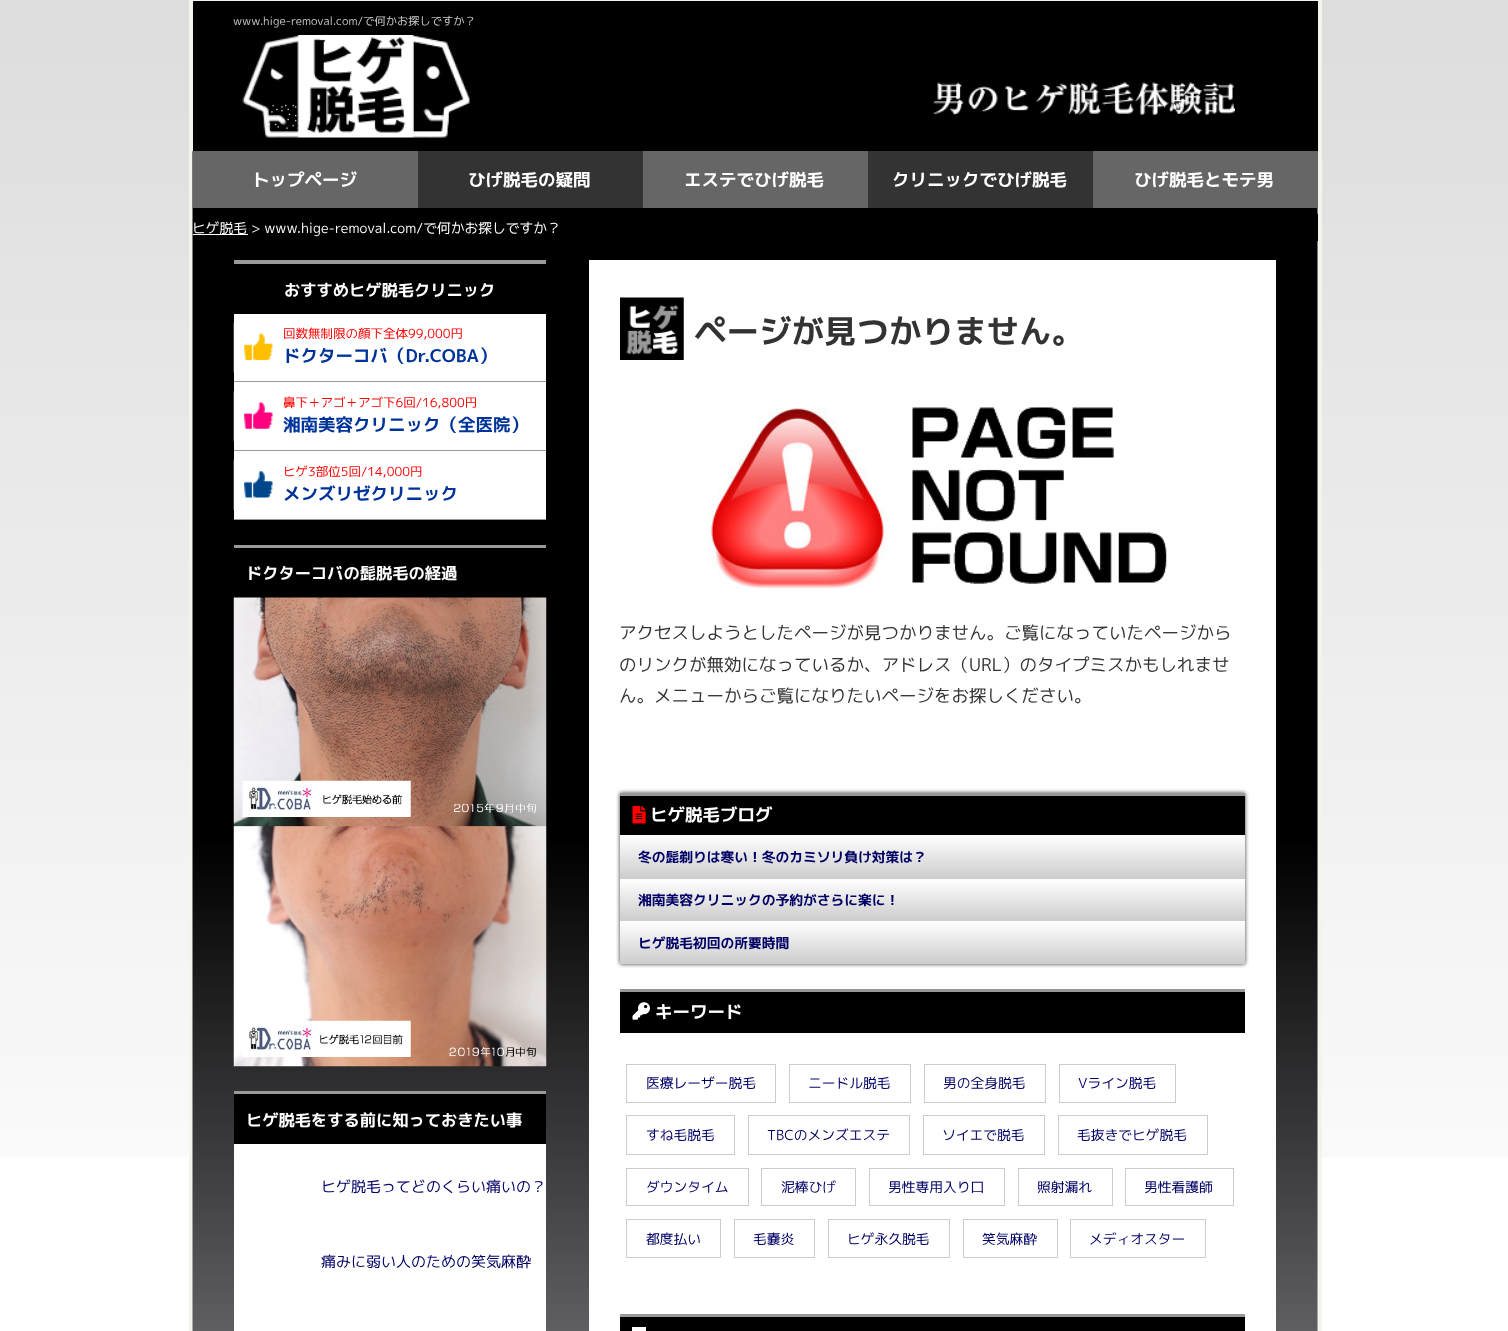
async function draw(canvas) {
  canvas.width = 1508
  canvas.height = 1331
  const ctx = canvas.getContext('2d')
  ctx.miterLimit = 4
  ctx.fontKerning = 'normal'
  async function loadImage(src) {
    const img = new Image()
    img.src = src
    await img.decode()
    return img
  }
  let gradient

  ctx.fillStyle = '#fff'
  ctx.fillRect(0, 0, 1508, 1331)
  ctx.drawImage(await loadImage('image0.png'), 0, 0, 1508, 1157)
  ctx.fillStyle = '#f3f4ee'
  ctx.fillRect(189, 0, 1132, 1)
  ctx.fillRect(1318, 0, 4, 1331)
  ctx.fillRect(189, 0, 4, 1331)
  ctx.fillStyle = '#000'
  ctx.fillRect(193, 1, 1125, 150)
  ctx.drawImage(await loadImage('image1.png'), 933, 82, 302, 33)
  ctx.font = '11.25px "M PLUS 1p"'
  ctx.fillStyle = '#ccc'
  ctx.fillText('www.hige-removal.com/で何かお探しですか？', 233, 25)
  ctx.drawImage(await loadImage('image2.png'), 242, 35, 228, 103)
  ctx.fillStyle = '#e8e8f0'
  ctx.fillRect(1317, 208, 1, 1123)
  ctx.drawImage(await loadImage('image3.png'), 192, 151, 1126, 1180)
  ctx.fillStyle = '#666'
  ctx.fillRect(193, 151, 225, 57)
  ctx.font = 'bold 17.5px "M PLUS 1p"'
  ctx.fillStyle = '#fff'
  ctx.fillText('トップページ', 252, 186)
  ctx.fillStyle = '#333'
  ctx.fillRect(418, 151, 225, 57)
  ctx.fillStyle = '#fff'
  ctx.fillText('ひげ脱毛の疑問', 468, 186)
  ctx.fillStyle = '#666'
  ctx.fillRect(643, 151, 225, 57)
  ctx.fillStyle = '#fff'
  ctx.fillText('エステでひげ脱毛', 684, 186)
  ctx.fillStyle = '#333'
  ctx.fillRect(868, 151, 225, 57)
  ctx.fillStyle = '#fff'
  ctx.fillText('クリニックでひげ脱毛', 892, 186)
  ctx.fillStyle = '#666'
  ctx.fillRect(1093, 151, 225, 57)
  ctx.fillStyle = '#fff'
  ctx.fillText('ひげ脱毛とモテ男', 1134, 186)
  ctx.fillStyle = '#000'
  ctx.fillRect(1317, 214, 1, 27)
  ctx.fillStyle = '#fff'
  ctx.fillRect(193, 234, 55, 1)
  ctx.font = '13.75px "M PLUS 1p"'
  ctx.fillText('ヒゲ脱毛 > www.hige-removal.com/で何かお探しですか？', 192, 233)
  ctx.fillStyle = '#9a9a9a'
  ctx.fillRect(234, 260, 312, 4)
  ctx.font = 'bold 16.25px "M PLUS 1p"'
  ctx.fillStyle = '#fff'
  ctx.fillText('おすすめヒゲ脱毛クリニック', 284, 296)
  ctx.fillRect(234, 314, 312, 136)
  ctx.drawImage(await loadImage('image4.png'), 233, 322, 40, 51)
  ctx.fillStyle = '#999'
  ctx.fillRect(234, 381, 312, 1)
  ctx.font = '12.5px "M PLUS 1p"'
  ctx.fillStyle = '#f00'
  ctx.fillText('回数無制限の顔下全体99,000円', 283, 338)
  ctx.font = 'bold 17.5px "M PLUS 1p"'
  ctx.fillStyle = '#039'
  ctx.fillText('ドクターコバ（Dr.COBA）', 283, 362)
  ctx.drawImage(await loadImage('image5.png'), 233, 391, 40, 51)
  ctx.fillStyle = '#999'
  ctx.fillRect(234, 450, 312, 1)
  ctx.font = '12.5px "M PLUS 1p"'
  ctx.fillStyle = '#f00'
  ctx.fillText('鼻下＋アゴ＋アゴ下6回/16,800円', 283, 407)
  ctx.font = 'bold 17.5px "M PLUS 1p"'
  ctx.fillStyle = '#039'
  ctx.fillText('湘南美容クリニック（全医院）', 283, 431)
  ctx.fillStyle = '#fff'
  ctx.fillRect(234, 451, 312, 68)
  ctx.drawImage(await loadImage('image6.png'), 233, 460, 40, 50)
  ctx.fillStyle = '#999'
  ctx.fillRect(234, 519, 312, 1)
  ctx.font = '12.5px "M PLUS 1p"'
  ctx.fillStyle = '#f00'
  ctx.fillText('ヒゲ3部位5回/14,000円', 283, 476)
  ctx.font = 'bold 17.5px "M PLUS 1p"'
  ctx.fillStyle = '#039'
  ctx.fillText('メンズリゼクリニック', 283, 500)
  ctx.fillStyle = '#fff'
  ctx.fillRect(589, 260, 687, 1071)
  ctx.drawImage(await loadImage('image7.png'), 620, 297, 64, 63)
  ctx.font = 'bold 32.5px "M PLUS 1p"'
  ctx.fillStyle = '#333'
  ctx.fillText('ページが見つかりません。', 694, 343)
  ctx.drawImage(await loadImage('image8.png'), 707, 407, 460, 182)
  ctx.font = '17.5px "M PLUS 1p"'
  ctx.fillText('アクセスしようとしたページが見つかりません。ご覧になっていたページから', 619, 639)
  ctx.fillText('のリンクが無効になっているか、アドレス（URL）のタイプミスかもしれませ', 619, 671)
  ctx.fillText('ん。メニューからご覧になりたいページをお探しください。', 619, 702)
  ctx.fillStyle = '#999'
  ctx.fillRect(234, 545, 312, 3)
  ctx.font = 'bold 16.25px "M PLUS 1p"'
  ctx.fillStyle = '#fff'
  ctx.fillText('ドクターコバの髭脱毛の経過', 246, 579)
  ctx.drawImage(await loadImage('image9.png'), 233, 597, 314, 470)
  ctx.fillStyle = '#000'
  ctx.fillRect(234, 1094, 312, 50)
  ctx.fillStyle = '#999'
  ctx.fillRect(234, 1091, 312, 3)
  ctx.fillStyle = '#fff'
  ctx.fillText('ヒゲ脱毛をする前に知っておきたい事', 246, 1126)
  ctx.fillRect(234, 1144, 312, 187)
  ctx.font = '15px "M PLUS 1p"'
  ctx.fillStyle = '#006'
  ctx.fillText('ヒゲ脱毛ってどのくらい痛いの？', 321, 1192)
  ctx.fillText('痛みに弱い人のための笑気麻酔', 321, 1267)
  ctx.fillStyle = '#333'
  ctx.filter = 'blur(2px)'
  ctx.beginPath()
  ctx.rect(620, 793, 625, 171)
  ctx.fill()
  ctx.filter = 'none'
  ctx.fillStyle = '#000'
  ctx.fillRect(620, 796, 625, 39)
  ctx.fillStyle = '#999'
  ctx.fillRect(620, 793, 625, 3)
  ctx.drawImage(await loadImage('image10.png'), 632, 805, 14, 19)
  ctx.font = 'bold 17.5px "M PLUS 1p"'
  ctx.fillStyle = '#fff'
  ctx.fillText('ヒゲ脱毛ブログ', 650, 821)
  gradient = ctx.createLinearGradient(620, 835, 620, 879)
  gradient.addColorStop(0, '#fff')
  gradient.addColorStop(1, '#ccc')
  ctx.fillStyle = gradient
  ctx.fillRect(620, 835, 625, 44)
  ctx.font = 'bold 13.75px "M PLUS 1p"'
  ctx.fillStyle = '#006'
  ctx.fillText('冬の髭剃りは寒い！冬のカミソリ負け対策は？', 638, 862)
  gradient = ctx.createLinearGradient(620, 879, 620, 921)
  gradient.addColorStop(0, '#fff')
  gradient.addColorStop(1, '#ccc')
  ctx.fillStyle = gradient
  ctx.fillRect(620, 879, 625, 42)
  ctx.fillStyle = '#006'
  ctx.fillText('湘南美容クリニックの予約がさらに楽に！', 638, 905)
  gradient = ctx.createLinearGradient(620, 921, 620, 964)
  gradient.addColorStop(0, '#fff')
  gradient.addColorStop(1, '#ccc')
  ctx.fillStyle = gradient
  ctx.fillRect(620, 921, 625, 43)
  ctx.fillStyle = '#006'
  ctx.fillText('ヒゲ脱毛初回の所要時間', 638, 948)
  ctx.fillStyle = '#000'
  ctx.fillRect(620, 992, 625, 41)
  ctx.fillStyle = '#999'
  ctx.fillRect(620, 989, 625, 3)
  ctx.drawImage(await loadImage('image11.png'), 632, 1002, 18, 18)
  ctx.font = 'bold 17.5px "M PLUS 1p"'
  ctx.fillStyle = '#fff'
  ctx.fillText('キーワード', 655, 1018)
  ctx.strokeStyle = '#ccc'
  ctx.strokeRect(626.5, 1064.5, 149, 38)
  ctx.font = '13.75px "M PLUS 1p"'
  ctx.fillStyle = '#006'
  ctx.fillText('医療レーザー脱毛', 646, 1088)
  ctx.strokeRect(789.5, 1064.5, 121, 38)
  ctx.fillText('ニードル脱毛', 808, 1088)
  ctx.strokeRect(924.5, 1064.5, 121, 38)
  ctx.fillText('男の全身脱毛', 943, 1088)
  ctx.strokeRect(1059.5, 1064.5, 116, 38)
  ctx.fillText('Vライン脱毛', 1078, 1088)
  ctx.strokeRect(626.5, 1115.5, 108, 39)
  ctx.fillText('すね毛脱毛', 646, 1140)
  ctx.strokeRect(748.5, 1115.5, 161, 39)
  ctx.fillText('TBCのメンズエステ', 767, 1140)
  ctx.strokeRect(923.5, 1115.5, 121, 39)
  ctx.fillText('ソイエで脱毛', 942, 1140)
  ctx.strokeRect(1058.5, 1115.5, 149, 39)
  ctx.fillText('毛抜きでヒゲ脱毛', 1077, 1140)
  ctx.strokeRect(626.5, 1168.5, 122, 37)
  ctx.fillText('ダウンタイム', 646, 1192)
  ctx.strokeRect(761.5, 1168.5, 94, 37)
  ctx.fillText('泥棒ひげ', 781, 1192)
  ctx.strokeRect(869.5, 1168.5, 135, 37)
  ctx.fillText('男性専用入り口', 888, 1192)
  ctx.strokeRect(1018.5, 1168.5, 94, 37)
  ctx.fillText('照射漏れ', 1037, 1192)
  ctx.strokeRect(1125.5, 1168.5, 108, 37)
  ctx.fillText('男性看護師', 1144, 1192)
  ctx.strokeRect(626.5, 1219.5, 94, 38)
  ctx.fillText('都度払い', 646, 1244)
  ctx.strokeRect(734.5, 1219.5, 80, 38)
  ctx.fillText('毛嚢炎', 753, 1244)
  ctx.strokeRect(828.5, 1219.5, 121, 38)
  ctx.fillText('ヒゲ永久脱毛', 847, 1244)
  ctx.strokeRect(963.5, 1219.5, 94, 38)
  ctx.fillText('笑気麻酔', 982, 1244)
  ctx.strokeRect(1070.5, 1219.5, 135, 38)
  ctx.fillText('メディオスター', 1089, 1244)
  ctx.fillStyle = '#000'
  ctx.fillRect(620, 1317, 625, 14)
  ctx.fillStyle = '#999'
  ctx.fillRect(620, 1314, 625, 3)
  ctx.fillStyle = '#fff'
  ctx.fillRect(632, 1327, 14, 4)
}

draw(document.querySelector('canvas'))
